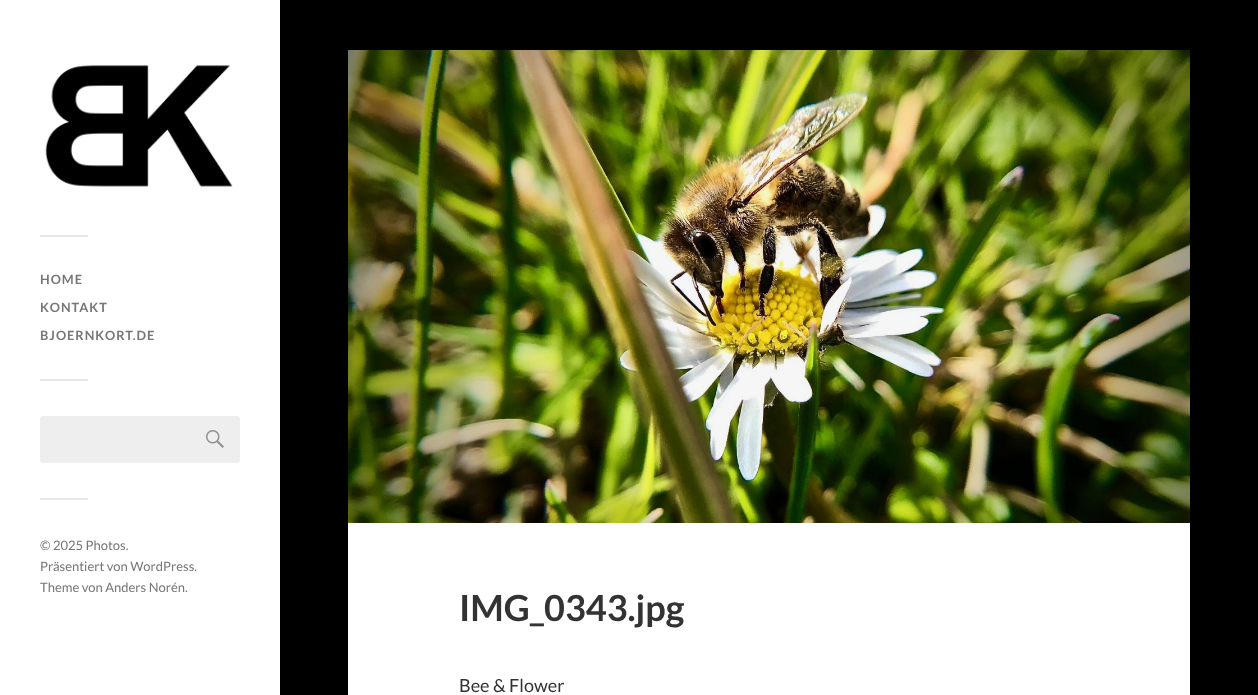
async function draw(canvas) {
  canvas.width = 1258
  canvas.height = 695
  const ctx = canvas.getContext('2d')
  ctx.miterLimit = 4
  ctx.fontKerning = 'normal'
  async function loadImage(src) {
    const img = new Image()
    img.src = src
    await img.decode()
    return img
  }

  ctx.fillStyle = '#000'
  ctx.fillRect(0, 0, 1258, 695)
  ctx.fillStyle = '#fff'
  ctx.fillRect(0, 0, 280, 695)
  ctx.drawImage(await loadImage('image0.png'), 45, 65, 188, 122)
  ctx.fillStyle = '#e7e7e7'
  ctx.fillRect(40, 235, 48, 2)
  ctx.letterSpacing = '1px'
  ctx.font = 'bold 12.75px Lato'
  ctx.fillStyle = '#767676'
  ctx.fillText('HOME', 40, 284)
  ctx.fillText('KONTAKT', 40, 312)
  ctx.fillText('BJOERNKORT.DE', 40, 340)
  ctx.fillStyle = '#e7e7e7'
  ctx.fillRect(40, 379, 48, 2)
  ctx.fillStyle = '#eee'
  ctx.beginPath()
  ctx.roundRect(40, 416, 200, 47, 3)
  ctx.fill()
  ctx.drawImage(await loadImage('image1.png'), 206, 430, 18, 18)
  ctx.fillStyle = '#e7e7e7'
  ctx.fillRect(40, 498, 48, 2)
  ctx.letterSpacing = '0px'
  ctx.font = '13px Lato'
  ctx.fillStyle = '#767676'
  ctx.fillText('© 2025 Photos.', 40, 550)
  ctx.fillText('Präsentiert von WordPress.', 40, 571)
  ctx.fillText('Theme von Anders Norén.', 40, 592)
  ctx.fillStyle = '#fff'
  ctx.fillRect(348, 523, 842, 172)
  ctx.drawImage(await loadImage('image2.png'), 348, 50, 842, 473)
  ctx.font = 'bold 36px Lato'
  ctx.fillStyle = '#333'
  ctx.fillText('IMG_0343.jpg', 459, 621)
  ctx.font = '18px Lato'
  ctx.fillText('Bee & Flower', 459, 692)
}

draw(document.querySelector('canvas'))
